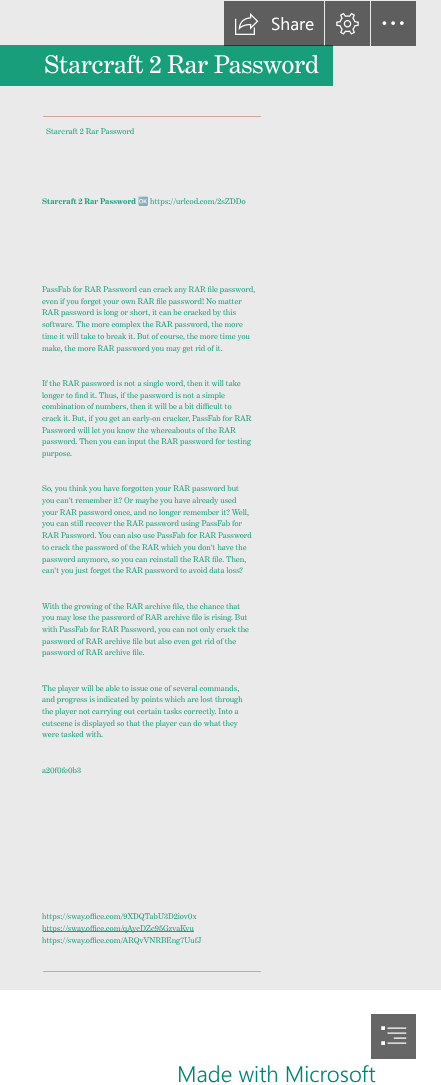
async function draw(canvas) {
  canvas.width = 441
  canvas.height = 1085
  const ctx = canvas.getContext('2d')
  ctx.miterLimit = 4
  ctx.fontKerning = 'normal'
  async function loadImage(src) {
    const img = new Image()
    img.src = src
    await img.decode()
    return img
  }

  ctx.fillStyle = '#eaeaea'
  ctx.fillRect(0, 0, 441, 1085)
  ctx.fillStyle = '#5e5e5e'
  ctx.fillRect(224, 1, 100, 44)
  ctx.drawImage(await loadImage('image0.png'), 235, 13, 24, 22)
  ctx.font = '17.5px Segoe UI'
  ctx.fillStyle = '#fff'
  ctx.fillText('Share', 271, 30)
  ctx.fillStyle = '#5e5e5e'
  ctx.fillRect(325, 1, 45, 45)
  ctx.drawImage(await loadImage('image1.png'), 336, 12, 23, 23)
  ctx.fillRect(371, 1, 45, 45)
  ctx.drawImage(await loadImage('image2.png'), 382, 21, 22, 4)
  ctx.fillStyle = '#199e7b'
  ctx.fillRect(0, 45, 333, 41)
  ctx.fillStyle = '#0a3f31'
  ctx.fillRect(325, 45, 8, 1)
  ctx.fillRect(224, 45, 100, 1)
  ctx.letterSpacing = '-0.1px'
  ctx.font = '25.9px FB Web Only'
  ctx.fillStyle = '#fff'
  ctx.fillText('Starcraft 2 Rar Password', 44, 73)
  ctx.fillStyle = '#d5a39a'
  ctx.fillRect(43, 116, 218, 1)
  ctx.letterSpacing = '0px'
  ctx.font = '8.25px FB Web Only'
  ctx.fillStyle = '#199e7b'
  ctx.fillText('Starcraft 2 Rar Password', 46, 134)
  ctx.font = 'bold 8.25px FB Web Only'
  ctx.fillText('Starcraft 2 Rar Password', 42, 204)
  ctx.font = '8.25px Noto Color Emoji'
  ctx.fillText('🆗', 138, 204)
  ctx.font = '8.25px FB Web Only'
  ctx.fillText('https://urlcod.com/2sZDDo', 150, 204)
  ctx.fillText('PassFab for RAR Password can crack any RAR file password,', 42, 292)
  ctx.fillText('even if you forget your own RAR file password! No matter', 42, 304)
  ctx.fillText('RAR password is long or short, it can be cracked by this', 42, 315)
  ctx.fillText('software. The more complex the RAR password, the more', 42, 327)
  ctx.fillText('time it will take to break it. But of course, the more time you', 42, 339)
  ctx.fillText('make, the more RAR password you may get rid of it.', 42, 351)
  ctx.fillText('If the RAR password is not a single word, then it will take', 42, 386)
  ctx.fillText('longer to find it. Thus, if the password is not a simple', 42, 398)
  ctx.fillText('combination of numbers, then it will be a bit difficult to', 42, 409)
  ctx.fillText('crack it. But, if you get an early-on cracker, PassFab for RAR', 42, 421)
  ctx.fillText('Password will let you know the whereabouts of the RAR', 42, 433)
  ctx.fillText('password. Then you can input the RAR password for testing', 42, 444)
  ctx.fillText('purpose.', 42, 456)
  ctx.fillText('So, you think you have forgotten your RAR password but', 42, 491)
  ctx.fillText('you can\'t remember it? Or maybe you have already used', 42, 503)
  ctx.fillText('your RAR password once, and no longer remember it? Well,', 42, 515)
  ctx.fillText('you can still recover the RAR password using PassFab for', 42, 526)
  ctx.fillText('RAR Password. You can also use PassFab for RAR Password', 42, 538)
  ctx.fillText('to crack the password of the RAR which you don\'t have the', 42, 550)
  ctx.fillText('password anymore, so you can reinstall the RAR file. Then,', 42, 562)
  ctx.fillText('can\'t you just forget the RAR password to avoid data loss?', 42, 573)
  ctx.fillText('With the growing of the RAR archive file, the chance that', 42, 609)
  ctx.fillText('you may lose the password of RAR archive file is rising. But', 42, 620)
  ctx.fillText('with PassFab for RAR Password, you can not only crack the', 42, 632)
  ctx.fillText('password of RAR archive file but also even get rid of the', 42, 644)
  ctx.fillText('password of RAR archive file.', 42, 655)
  ctx.fillText('The player will be able to issue one of several commands,', 42, 691)
  ctx.fillText('and progress is indicated by points which are lost through', 42, 702)
  ctx.fillText('the player not carrying out certain tasks correctly. Into a', 42, 714)
  ctx.fillText('cutscene is displayed so that the player can do what they', 42, 726)
  ctx.fillText('were tasked with.', 42, 737)
  ctx.fillText('a20f0fe0b3', 42, 773)
  ctx.fillText('https://sway.office.com/9XDQTabU3D2iov0x', 42, 919)
  ctx.beginPath()
  ctx.roundRect(43, 931, 151, 1, 0.5)
  ctx.fill()
  ctx.fillText('https://sway.office.com/qAycDZc95GzvaKvu', 42, 931)
  ctx.fillText('https://sway.office.com/ARQvVNRBEng7UufJ', 42, 943)
  ctx.fillStyle = '#d5a39a'
  ctx.fillRect(43, 971, 218, 1)
  ctx.fillStyle = '#fff'
  ctx.fillRect(0, 990, 441, 95)
  ctx.font = '300 22.5px Segoe UI'
  ctx.fillStyle = '#008272'
  ctx.fillText('Made with Microsoft', 177, 1082)
  ctx.fillStyle = '#666'
  ctx.fillRect(371, 1014, 45, 45)
  ctx.drawImage(await loadImage('image3.png'), 381, 1026, 26, 19)
}

draw(document.querySelector('canvas'))
